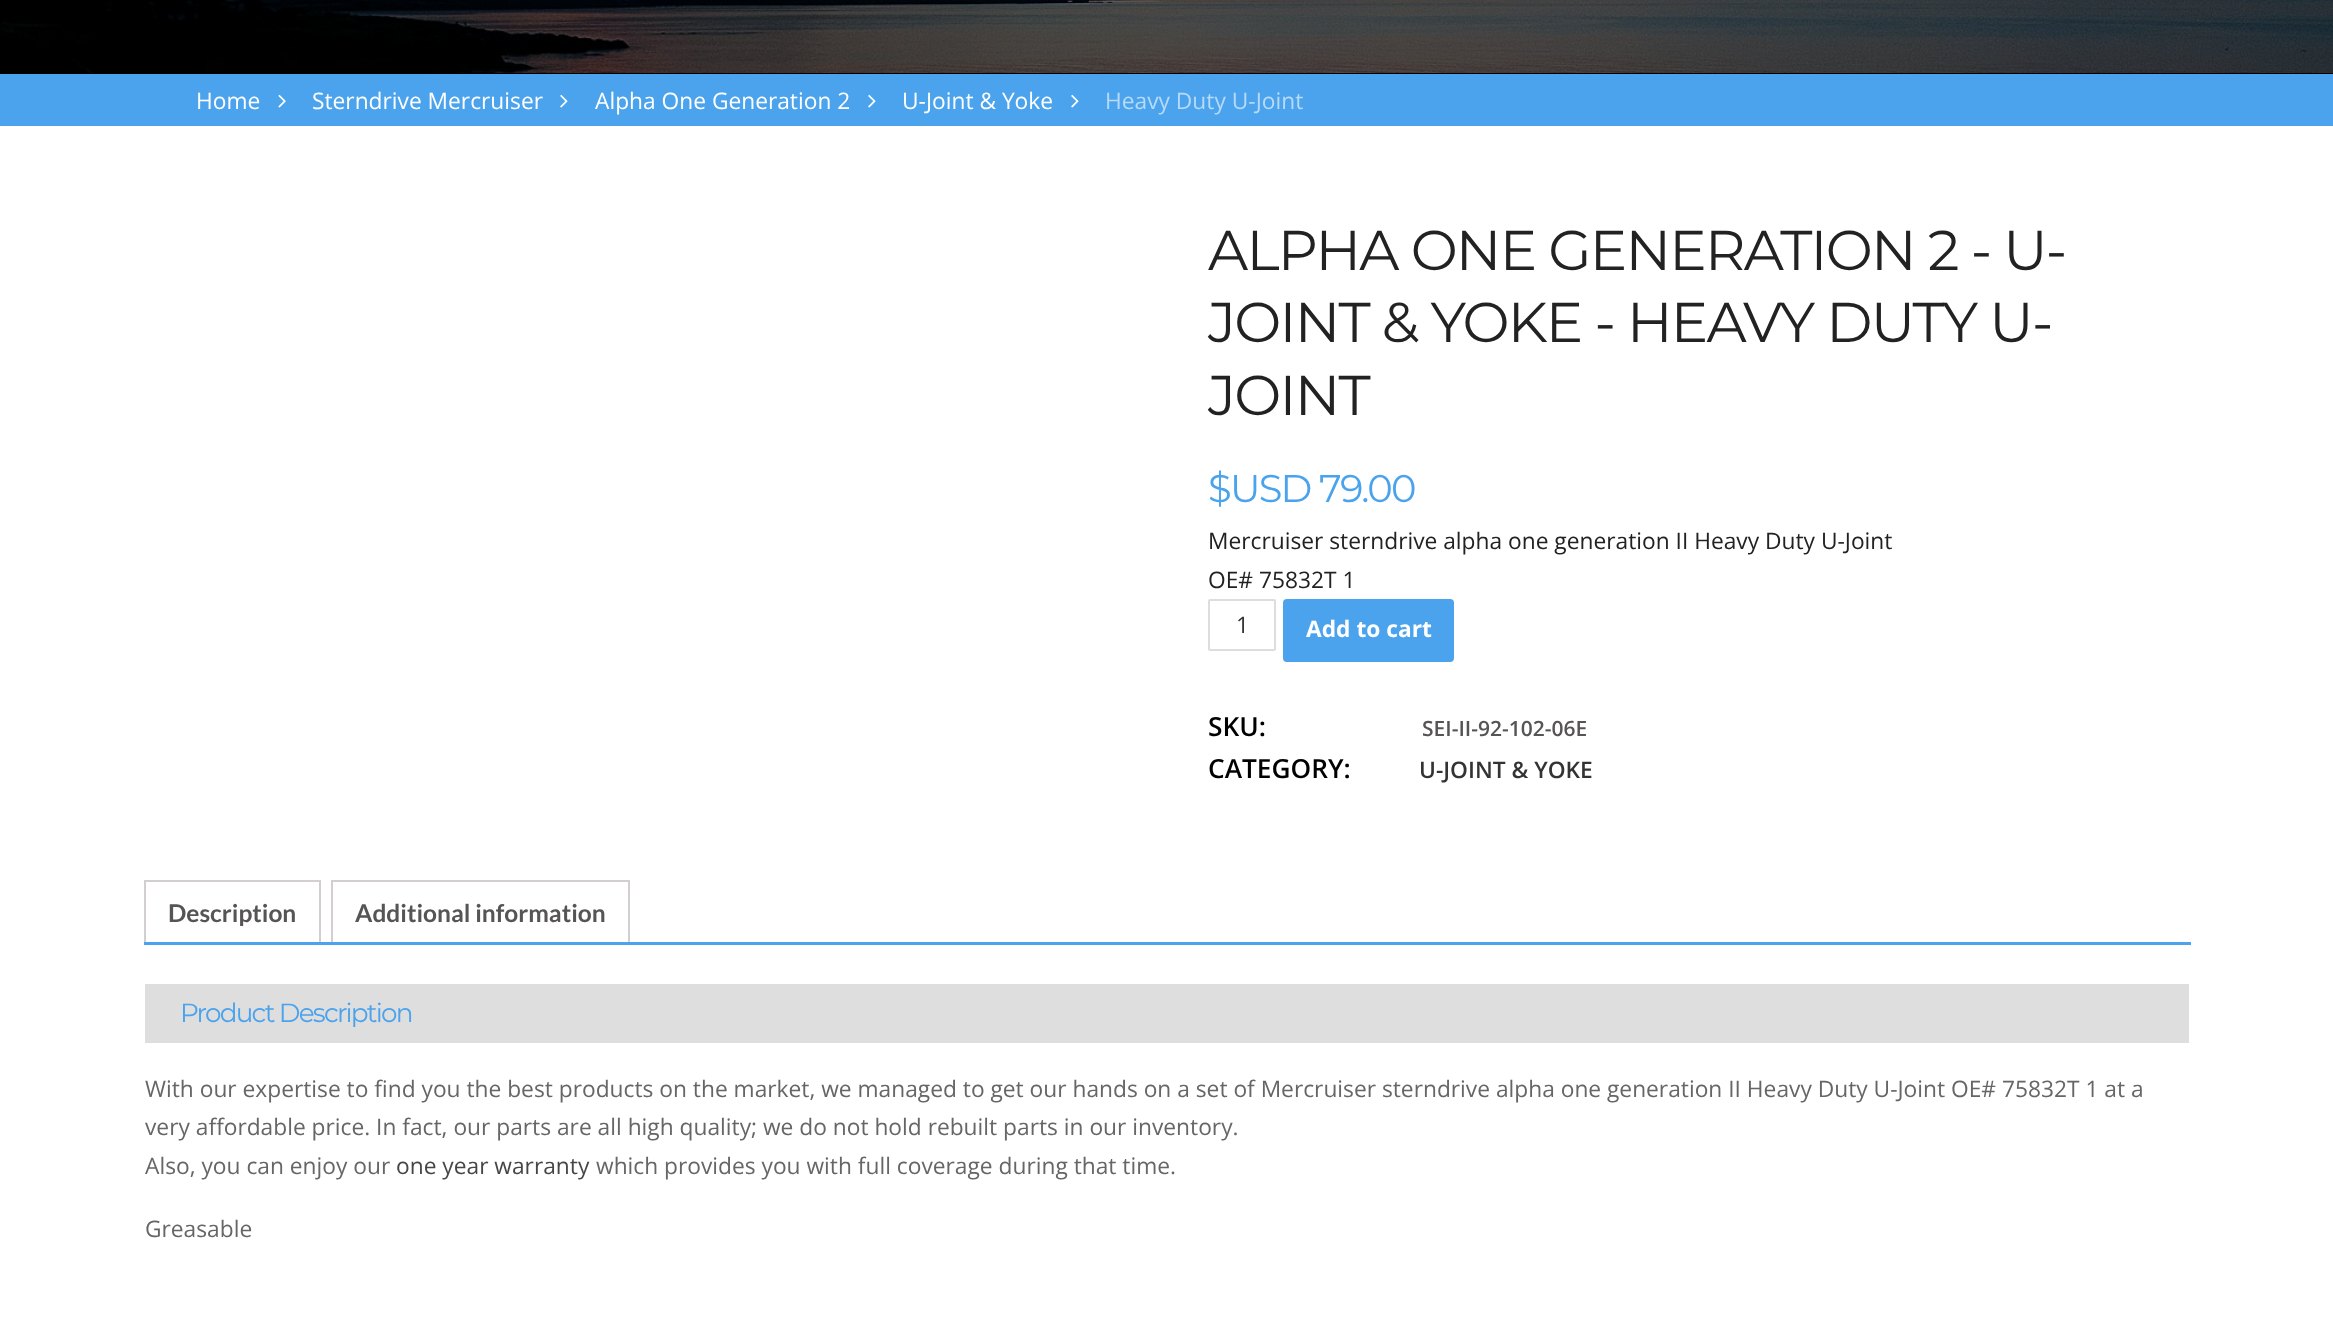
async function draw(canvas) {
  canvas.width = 2333
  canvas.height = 1332
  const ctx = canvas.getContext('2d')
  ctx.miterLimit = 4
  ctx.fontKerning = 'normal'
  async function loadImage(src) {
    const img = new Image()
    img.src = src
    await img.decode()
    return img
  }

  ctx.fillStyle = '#000'
  ctx.fillRect(0, 0, 2333, 1332)
  ctx.drawImage(await loadImage('image0.png'), 0, 0, 2333, 73)
  ctx.fillStyle = '#4aa3ec'
  ctx.fillRect(0, 74, 2333, 52)
  ctx.font = '22.75px Open Sans'
  ctx.fillStyle = '#fff'
  ctx.fillText('Home', 196, 109)
  ctx.drawImage(await loadImage('image1.png'), 278, 94, 8, 14)
  ctx.fillText('Sterndrive Mercruiser', 312, 109)
  ctx.drawImage(await loadImage('image2.png'), 560, 94, 8, 14)
  ctx.fillText('Alpha One Generation 2', 595, 109)
  ctx.drawImage(await loadImage('image2.png'), 868, 94, 8, 14)
  ctx.fillText('U-Joint & Yoke', 902, 109)
  ctx.drawImage(await loadImage('image2.png'), 1071, 94, 8, 14)
  ctx.fillStyle = '#b7daf7'
  ctx.fillText('Heavy Duty U-Joint', 1105, 109)
  ctx.fillStyle = '#fff'
  ctx.fillRect(0, 126, 2333, 1206)
  ctx.letterSpacing = '-1.75px'
  ctx.font = '56px Montserrat'
  ctx.fillStyle = '#222'
  ctx.fillText('ALPHA ONE GENERATION 2 - U-', 1208, 270)
  ctx.fillText('JOINT & YOKE - HEAVY DUTY U-', 1208, 342)
  ctx.fillText('JOINT', 1208, 415)
  ctx.font = '38.5px Montserrat'
  ctx.fillStyle = '#4aa3ec'
  ctx.fillText('$USD 79.00', 1208, 502)
  ctx.letterSpacing = '0px'
  ctx.font = '22.75px Open Sans'
  ctx.fillStyle = '#222'
  ctx.fillText('Mercruiser sterndrive alpha one generation II Heavy Duty U-Joint', 1208, 549)
  ctx.fillText('OE# 75832T 1', 1208, 588)
  ctx.beginPath()
  ctx.roundRect(1209, 600, 66, 50, 1)
  ctx.strokeStyle = '#ddd'
  ctx.lineWidth = 2
  ctx.stroke()
  ctx.fillStyle = '#333'
  ctx.fillText('1', 1236, 633)
  ctx.fillStyle = '#4aa3ec'
  ctx.beginPath()
  ctx.roundRect(1283, 599, 171, 63, 4)
  ctx.fill()
  ctx.font = 'bold 22.75px Open Sans'
  ctx.fillStyle = '#fff'
  ctx.fillText('Add to cart', 1306, 637)
  ctx.font = '600 26.25px Open Sans'
  ctx.fillStyle = '#000'
  ctx.fillText('SKU:', 1208, 736)
  ctx.font = '600 21px Open Sans'
  ctx.fillStyle = '#565454'
  ctx.fillText('SEI-II-92-102-06E', 1422, 736)
  ctx.font = '600 26.25px Open Sans'
  ctx.fillStyle = '#000'
  ctx.fillText('CATEGORY:', 1208, 778)
  ctx.font = '600 22.75px Open Sans'
  ctx.fillStyle = '#333'
  ctx.fillText('U-JOINT & YOKE', 1419, 778)
  ctx.fillStyle = '#d3ced2'
  ctx.fillRect(144, 880, 176, 2)
  ctx.fillRect(319, 880, 2, 65)
  ctx.fillRect(144, 880, 2, 65)
  ctx.font = 'bold 24.5px Lato'
  ctx.fillStyle = '#565454'
  ctx.fillText('Description', 168, 922)
  ctx.fillStyle = '#d3ced2'
  ctx.fillRect(331, 880, 299, 2)
  ctx.fillRect(628, 880, 2, 65)
  ctx.fillRect(331, 880, 2, 65)
  ctx.fillStyle = '#565454'
  ctx.fillText('Additional information', 355, 922)
  ctx.fillStyle = '#4aa3ec'
  ctx.fillRect(144, 942, 2047, 3)
  ctx.fillStyle = '#dedede'
  ctx.fillRect(145, 984, 2044, 59)
  ctx.letterSpacing = '-1.75px'
  ctx.font = '26.25px Montserrat'
  ctx.fillStyle = '#4aa3ec'
  ctx.fillText('Product Description', 180, 1022)
  ctx.letterSpacing = '0px'
  ctx.font = '22.75px Open Sans'
  ctx.fillStyle = '#666'
  ctx.fillText('With our expertise to find you the best products on the market, we managed to get our hands on a set of Mercruiser sterndrive alpha one generation II Heavy Duty U-Joint OE# 75832T 1 at a', 145, 1097)
  ctx.fillText('very affordable price. In fact, our parts are all high quality; we do not hold rebuilt parts in our inventory.', 145, 1135)
  ctx.fillText('Also, you can enjoy our', 145, 1174)
  ctx.fillStyle = '#464646'
  ctx.fillText('one year warranty', 396, 1174)
  ctx.fillStyle = '#666'
  ctx.fillText('which provides you with full coverage during that time.', 596, 1174)
  ctx.fillText('Greasable', 145, 1237)
}

draw(document.querySelector('canvas'))
